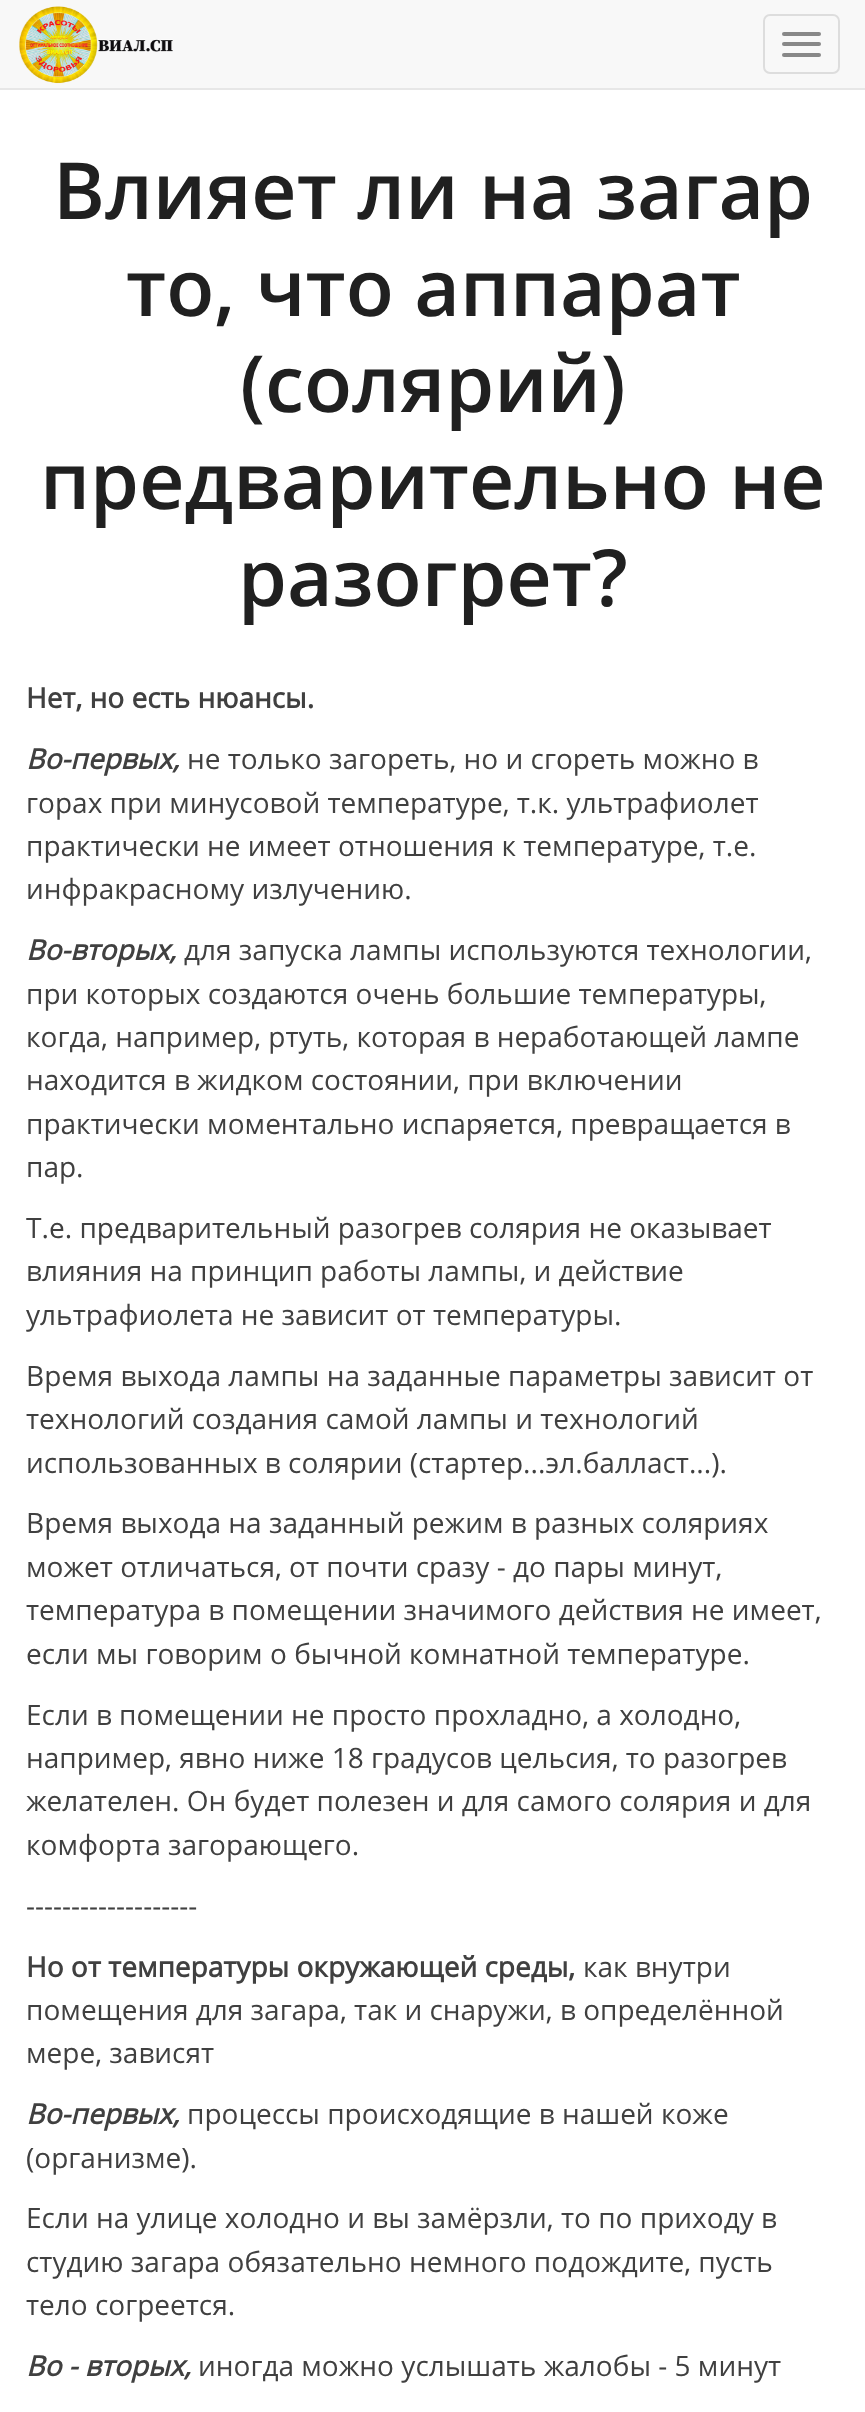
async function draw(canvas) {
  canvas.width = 865
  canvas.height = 2412
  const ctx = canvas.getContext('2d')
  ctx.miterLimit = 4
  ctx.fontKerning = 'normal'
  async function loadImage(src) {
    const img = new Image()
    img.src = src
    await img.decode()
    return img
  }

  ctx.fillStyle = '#fff'
  ctx.fillRect(0, 0, 865, 2412)
  ctx.fillStyle = '#f8f8f8'
  ctx.fillRect(0, 0, 865, 88)
  ctx.fillStyle = '#e7e7e7'
  ctx.fillRect(0, 88, 865, 2)
  ctx.drawImage(await loadImage('image0.png'), 19, 6, 154, 78)
  ctx.beginPath()
  ctx.roundRect(764, 15, 75, 58, 6)
  ctx.strokeStyle = '#ddd'
  ctx.lineWidth = 2
  ctx.stroke()
  ctx.fillStyle = '#888'
  ctx.beginPath()
  ctx.roundRect(782, 32, 39, 4, 2)
  ctx.fill()
  ctx.beginPath()
  ctx.roundRect(782, 42, 39, 4, 2)
  ctx.fill()
  ctx.beginPath()
  ctx.roundRect(782, 53, 39, 4, 2)
  ctx.fill()
  ctx.font = '600 78.75px Open Sans'
  ctx.fillStyle = '#202020'
  ctx.fillText('Влияет ли на загар', 53, 219)
  ctx.fillText('то, что аппарат', 126, 316)
  ctx.fillText('(солярий)', 240, 412)
  ctx.fillText('предварительно не', 40, 509)
  ctx.fillText('разогрет?', 238, 606)
  ctx.font = 'bold 28px Open Sans'
  ctx.fillStyle = '#404040'
  ctx.fillText('Нет, но есть нюансы.', 26, 708)
  ctx.font = 'italic bold 28px Open Sans'
  ctx.fillText('Во-первых,', 26, 769)
  ctx.font = '28px Open Sans'
  ctx.fillText('не только загореть, но и сгореть можно в', 187, 769)
  ctx.fillText('горах при минусовой температуре, т.к. ультрафиолет', 26, 813)
  ctx.fillText('практически не имеет отношения к температуре, т.е.', 26, 856)
  ctx.fillText('инфракрасному излучению.', 26, 899)
  ctx.font = 'italic bold 28px Open Sans'
  ctx.fillText('Во-вторых,', 26, 960)
  ctx.font = '28px Open Sans'
  ctx.fillText('для запуска лампы используются технологии,', 184, 960)
  ctx.fillText('при которых создаются очень большие температуры,', 26, 1004)
  ctx.fillText('когда, например, ртуть, которая в неработающей лампе', 26, 1047)
  ctx.fillText('находится в жидком состоянии, при включении', 26, 1090)
  ctx.fillText('практически моментально испаряется, превращается в', 26, 1134)
  ctx.fillText('пар.', 26, 1177)
  ctx.fillText('Т.е. предварительный разогрев солярия не оказывает', 26, 1238)
  ctx.fillText('влияния на принцип работы лампы, и действие', 26, 1281)
  ctx.fillText('ультрафиолета не зависит от температуры.', 26, 1325)
  ctx.fillText('Время выхода лампы на заданные параметры зависит от', 26, 1386)
  ctx.fillText('технологий создания самой лампы и технологий', 26, 1429)
  ctx.fillText('использованных в солярии (стартер...эл.балласт...).', 26, 1473)
  ctx.fillText('Время выхода на заданный режим в разных соляриях', 26, 1533)
  ctx.fillText('может отличаться, от почти сразу - до пары минут,', 26, 1577)
  ctx.fillText('температура в помещении значимого действия не имеет,', 26, 1620)
  ctx.fillText('если мы говорим о бычной комнатной температуре.', 26, 1664)
  ctx.fillText('Если в помещении не просто прохладно, а холодно,', 26, 1725)
  ctx.fillText('например, явно ниже 18 градусов цельсия, то разогрев', 26, 1768)
  ctx.fillText('желателен. Он будет полезен и для самого солярия и для', 26, 1811)
  ctx.fillText('комфорта загорающего.', 26, 1855)
  ctx.fillText('-------------------', 26, 1916)
  ctx.font = 'bold 28px Open Sans'
  ctx.fillText('Но от температуры окружающей среды,', 26, 1977)
  ctx.font = '28px Open Sans'
  ctx.fillText('как внутри', 583, 1977)
  ctx.fillText('помещения для загара, так и снаружи, в определённой', 26, 2020)
  ctx.fillText('мере, зависят', 26, 2063)
  ctx.font = 'italic bold 28px Open Sans'
  ctx.fillText('Во-первых,', 26, 2124)
  ctx.font = '28px Open Sans'
  ctx.fillText('процессы происходящие в нашей коже', 187, 2124)
  ctx.fillText('(организме).', 26, 2168)
  ctx.fillText('Если на улице холодно и вы замёрзли, то по приходу в', 26, 2228)
  ctx.fillText('студию загара обязательно немного подождите, пусть', 26, 2272)
  ctx.fillText('тело согреется.', 26, 2315)
  ctx.font = 'italic bold 28px Open Sans'
  ctx.fillText('Во - вторых,', 26, 2376)
  ctx.font = '28px Open Sans'
  ctx.fillText('иногда можно услышать жалобы - 5 минут', 198, 2376)
}

draw(document.querySelector('canvas'))
